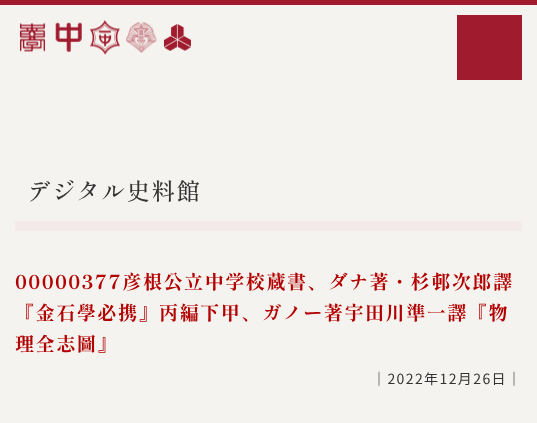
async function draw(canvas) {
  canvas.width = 537
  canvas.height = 423
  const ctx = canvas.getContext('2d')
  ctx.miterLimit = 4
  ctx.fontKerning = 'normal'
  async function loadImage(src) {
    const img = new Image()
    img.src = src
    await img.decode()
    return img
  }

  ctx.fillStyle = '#f5f3ef'
  ctx.fillRect(0, 0, 537, 423)
  ctx.fillStyle = '#a01b2e'
  ctx.fillRect(0, 0, 537, 5)
  ctx.drawImage(await loadImage('image0.png'), 19, 20, 172, 35)
  ctx.fillRect(457, 15, 65, 65)
  ctx.fillStyle = '#f4eaea'
  ctx.fillRect(15, 221, 507, 10)
  ctx.letterSpacing = '1.4px'
  ctx.font = '500 23.5px Shippori Mincho'
  ctx.fillStyle = '#333'
  ctx.fillText('デジタル史料館', 27, 200)
  ctx.font = 'bold 19.2px Shippori Mincho'
  ctx.fillStyle = '#b20000'
  ctx.fillText('00000377彦根公立中学校蔵書、ダナ著・杉邨次郎譯', 15, 289)
  ctx.fillText('『金石學必携』丙編下甲、ガノー著宇田川準一譯『物', 15, 320)
  ctx.fillText('理全志圖』', 15, 351)
  ctx.font = '14px Noto Sans JP'
  ctx.fillStyle = '#333'
  ctx.fillText('｜2022年12月26日｜', 372, 384)
}

draw(document.querySelector('canvas'))
